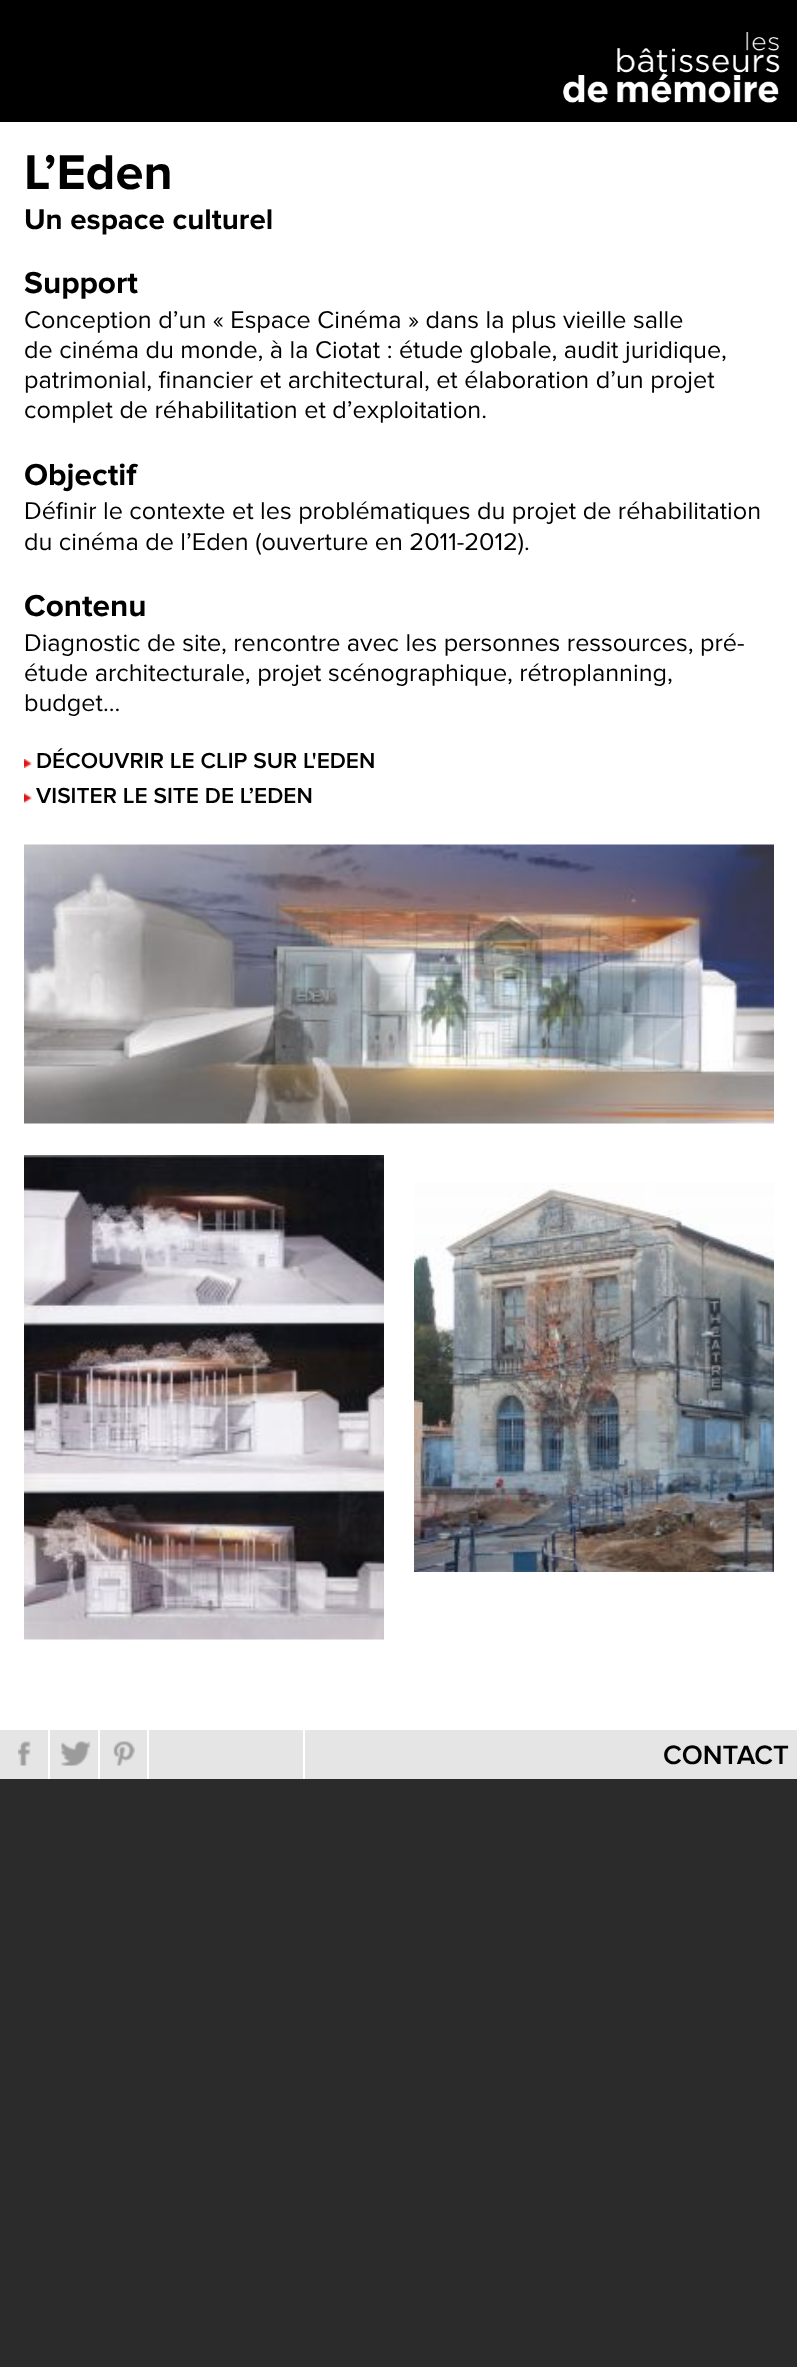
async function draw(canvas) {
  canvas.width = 797
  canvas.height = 2367
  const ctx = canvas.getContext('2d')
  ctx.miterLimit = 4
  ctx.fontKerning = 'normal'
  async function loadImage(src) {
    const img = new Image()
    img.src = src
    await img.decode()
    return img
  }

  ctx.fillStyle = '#2b2b2b'
  ctx.fillRect(0, 0, 797, 2367)
  ctx.fillStyle = '#000'
  ctx.fillRect(0, 0, 797, 122)
  ctx.drawImage(await loadImage('image0.png'), 563, 32, 217, 71)
  ctx.fillStyle = '#fff'
  ctx.fillRect(0, 122, 797, 1608)
  ctx.font = 'bold 50.5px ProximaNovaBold'
  ctx.fillStyle = '#000'
  ctx.fillText('L’Eden', 24, 189)
  ctx.font = 'bold 29.5px ProximaNovaBold'
  ctx.fillText('Un espace culturel', 24, 229)
  ctx.font = 'bold 31.5px ProximaNovaBold'
  ctx.fillText('Support', 24, 293)
  ctx.font = '25.2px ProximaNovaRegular'
  ctx.fillText('Conception d’un « Espace Cinéma » dans la plus vieille salle', 24, 328)
  ctx.fillText('de cinéma du monde, à la Ciotat : étude globale, audit juridique,', 24, 358)
  ctx.fillText('patrimonial, financier et architectural, et élaboration d’un projet', 24, 388)
  ctx.fillText('complet de réhabilitation et d’exploitation.', 24, 418)
  ctx.font = 'bold 31.5px ProximaNovaBold'
  ctx.fillText('Objectif', 24, 485)
  ctx.font = '25.2px ProximaNovaRegular'
  ctx.fillText('Définir le contexte et les problématiques du projet de réhabilitation', 24, 519)
  ctx.fillText('du cinéma de l’Eden (ouverture en 2011-2012).', 24, 550)
  ctx.font = 'bold 31.5px ProximaNovaBold'
  ctx.fillText('Contenu', 24, 616)
  ctx.font = '25.2px ProximaNovaRegular'
  ctx.fillText('Diagnostic de site, rencontre avec les personnes ressources, pré-', 24, 651)
  ctx.fillText('étude architecturale, projet scénographique, rétroplanning,', 24, 681)
  ctx.fillText('budget...', 24, 711)
  ctx.drawImage(await loadImage('image1.png'), 24, 759, 8, 9)
  ctx.font = '600 22.7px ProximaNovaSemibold'
  ctx.fillText('DÉCOUVRIR LE CLIP SUR L\'EDEN', 36, 768)
  ctx.drawImage(await loadImage('image2.png'), 24, 793, 8, 10)
  ctx.fillText('VISITER LE SITE DE L’EDEN', 36, 803)
  ctx.drawImage(await loadImage('image3.png'), 24, 844, 750, 280)
  ctx.drawImage(await loadImage('image4.png'), 24, 1155, 360, 485)
  ctx.drawImage(await loadImage('image5.png'), 414, 1182, 360, 390)
  ctx.fillStyle = '#e5e5e5'
  ctx.fillRect(0, 1730, 797, 49)
  ctx.drawImage(await loadImage('image6.png'), 18, 1741, 13, 25)
  ctx.fillStyle = '#fff'
  ctx.fillRect(48, 1730, 2, 49)
  ctx.drawImage(await loadImage('image7.png'), 61, 1741, 30, 25)
  ctx.fillRect(98, 1730, 2, 49)
  ctx.drawImage(await loadImage('image8.png'), 113, 1741, 22, 25)
  ctx.fillRect(147, 1730, 2, 49)
  ctx.fillRect(303, 1730, 2, 49)
  ctx.font = '600 27.5px ProximaNovaSemibold'
  ctx.fillStyle = '#000'
  ctx.fillText('CONTACT', 663, 1764)
}

draw(document.querySelector('canvas'))
